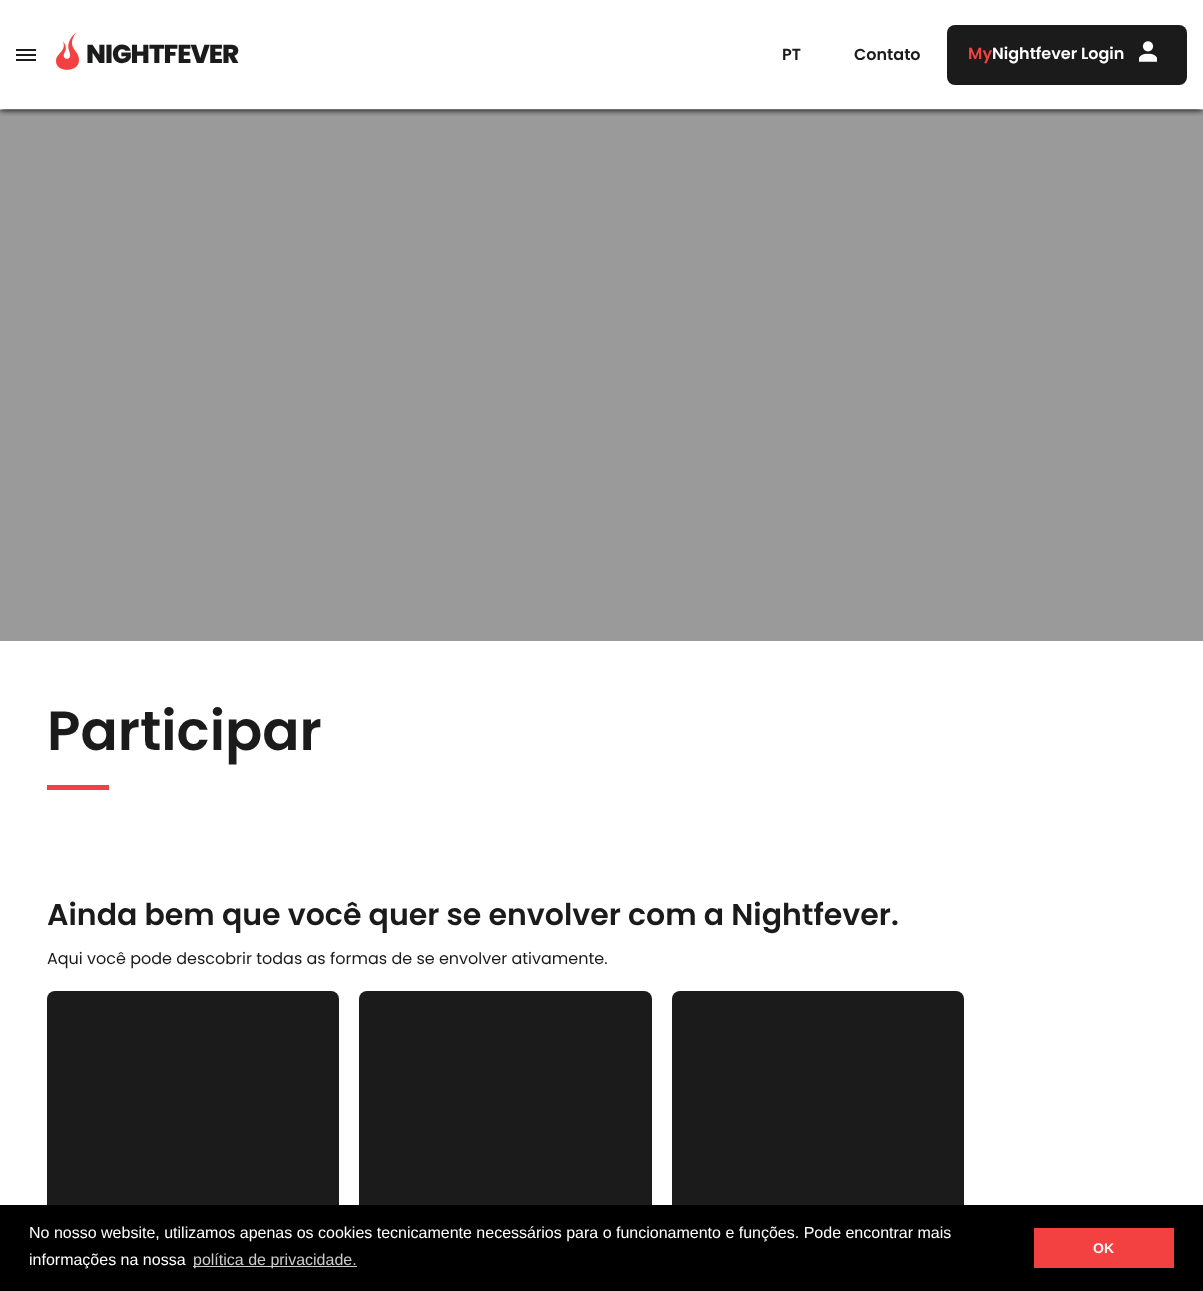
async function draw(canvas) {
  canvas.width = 1203
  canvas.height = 1291
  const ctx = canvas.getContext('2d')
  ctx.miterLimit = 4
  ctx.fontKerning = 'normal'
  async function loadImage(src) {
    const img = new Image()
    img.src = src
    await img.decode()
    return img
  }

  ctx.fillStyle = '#fff'
  ctx.fillRect(0, 0, 1203, 1291)
  ctx.fillStyle = '#9a9a9a'
  ctx.fillRect(0, 110, 1203, 531)
  ctx.save()
  ctx.beginPath()
  ctx.rect(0, 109, 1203, 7)
  ctx.clip()
  ctx.fillStyle = '#000'
  ctx.filter = 'blur(3px)'
  ctx.beginPath()
  ctx.rect(0, 1, 1203, 109)
  ctx.fill()
  ctx.filter = 'none'
  ctx.restore()
  ctx.fillStyle = '#1b1b1b'
  ctx.fillRect(16, 54, 20, 2)
  ctx.fillRect(16, 49, 20, 2)
  ctx.fillRect(16, 59, 20, 2)
  ctx.drawImage(await loadImage('image0.png'), 56, 32, 23, 38)
  ctx.letterSpacing = '-1px'
  ctx.font = '800 26px Poppins'
  ctx.fillText('NIGHTFEVER', 86, 63)
  ctx.letterSpacing = '0px'
  ctx.font = '600 16px Poppins'
  ctx.fillText('PT', 782, 60)
  ctx.fillText('Contato', 854, 60)
  ctx.beginPath()
  ctx.roundRect(947, 25, 240, 60, 8)
  ctx.fill()
  ctx.fillStyle = '#f34040'
  ctx.fillText('My', 968, 59)
  ctx.fillStyle = '#fff'
  ctx.fillText('Nightfever Login', 992, 59)
  ctx.drawImage(await loadImage('image1.png'), 1139, 41, 18, 21)
  ctx.font = '600 55px Poppins'
  ctx.fillStyle = '#1b1b1b'
  ctx.fillText('Participar', 47, 750)
  ctx.fillStyle = '#f34040'
  ctx.fillRect(47, 785, 62, 5)
  ctx.font = '600 30px Poppins'
  ctx.fillStyle = '#1b1b1b'
  ctx.fillText('Ainda bem que você quer se envolver com a Nightfever.', 47, 925)
  ctx.font = '16px Poppins'
  ctx.fillText('Aqui você pode descobrir todas as formas de se envolver ativamente.', 47, 964)
  ctx.beginPath()
  ctx.roundRect(47, 991, 292, 300, [8, 8, 0, 0])
  ctx.fill()
  ctx.beginPath()
  ctx.roundRect(359, 991, 293, 300, [8, 8, 0, 0])
  ctx.fill()
  ctx.beginPath()
  ctx.roundRect(672, 991, 292, 300, [8, 8, 0, 0])
  ctx.fill()
  ctx.fillStyle = '#000'
  ctx.fillRect(0, 1205, 1203, 86)
  ctx.font = '16px Liberation Sans'
  ctx.fillStyle = '#fff'
  ctx.fillText('No nosso website, utilizamos apenas os cookies tecnicamente necessários para o funcionamento e funções. Pode encontrar mais', 29, 1238)
  ctx.fillText('informações na nossa', 29, 1265)
  ctx.fillStyle = '#ccc'
  ctx.fillRect(193, 1266, 164, 1)
  ctx.fillText('política de privacidade.', 193, 1265)
  ctx.fillStyle = '#f34040'
  ctx.fillRect(1034, 1228, 140, 40)
  ctx.font = 'bold 14px Liberation Sans'
  ctx.fillStyle = '#fff'
  ctx.fillText('OK', 1093, 1253)
}

draw(document.querySelector('canvas'))
